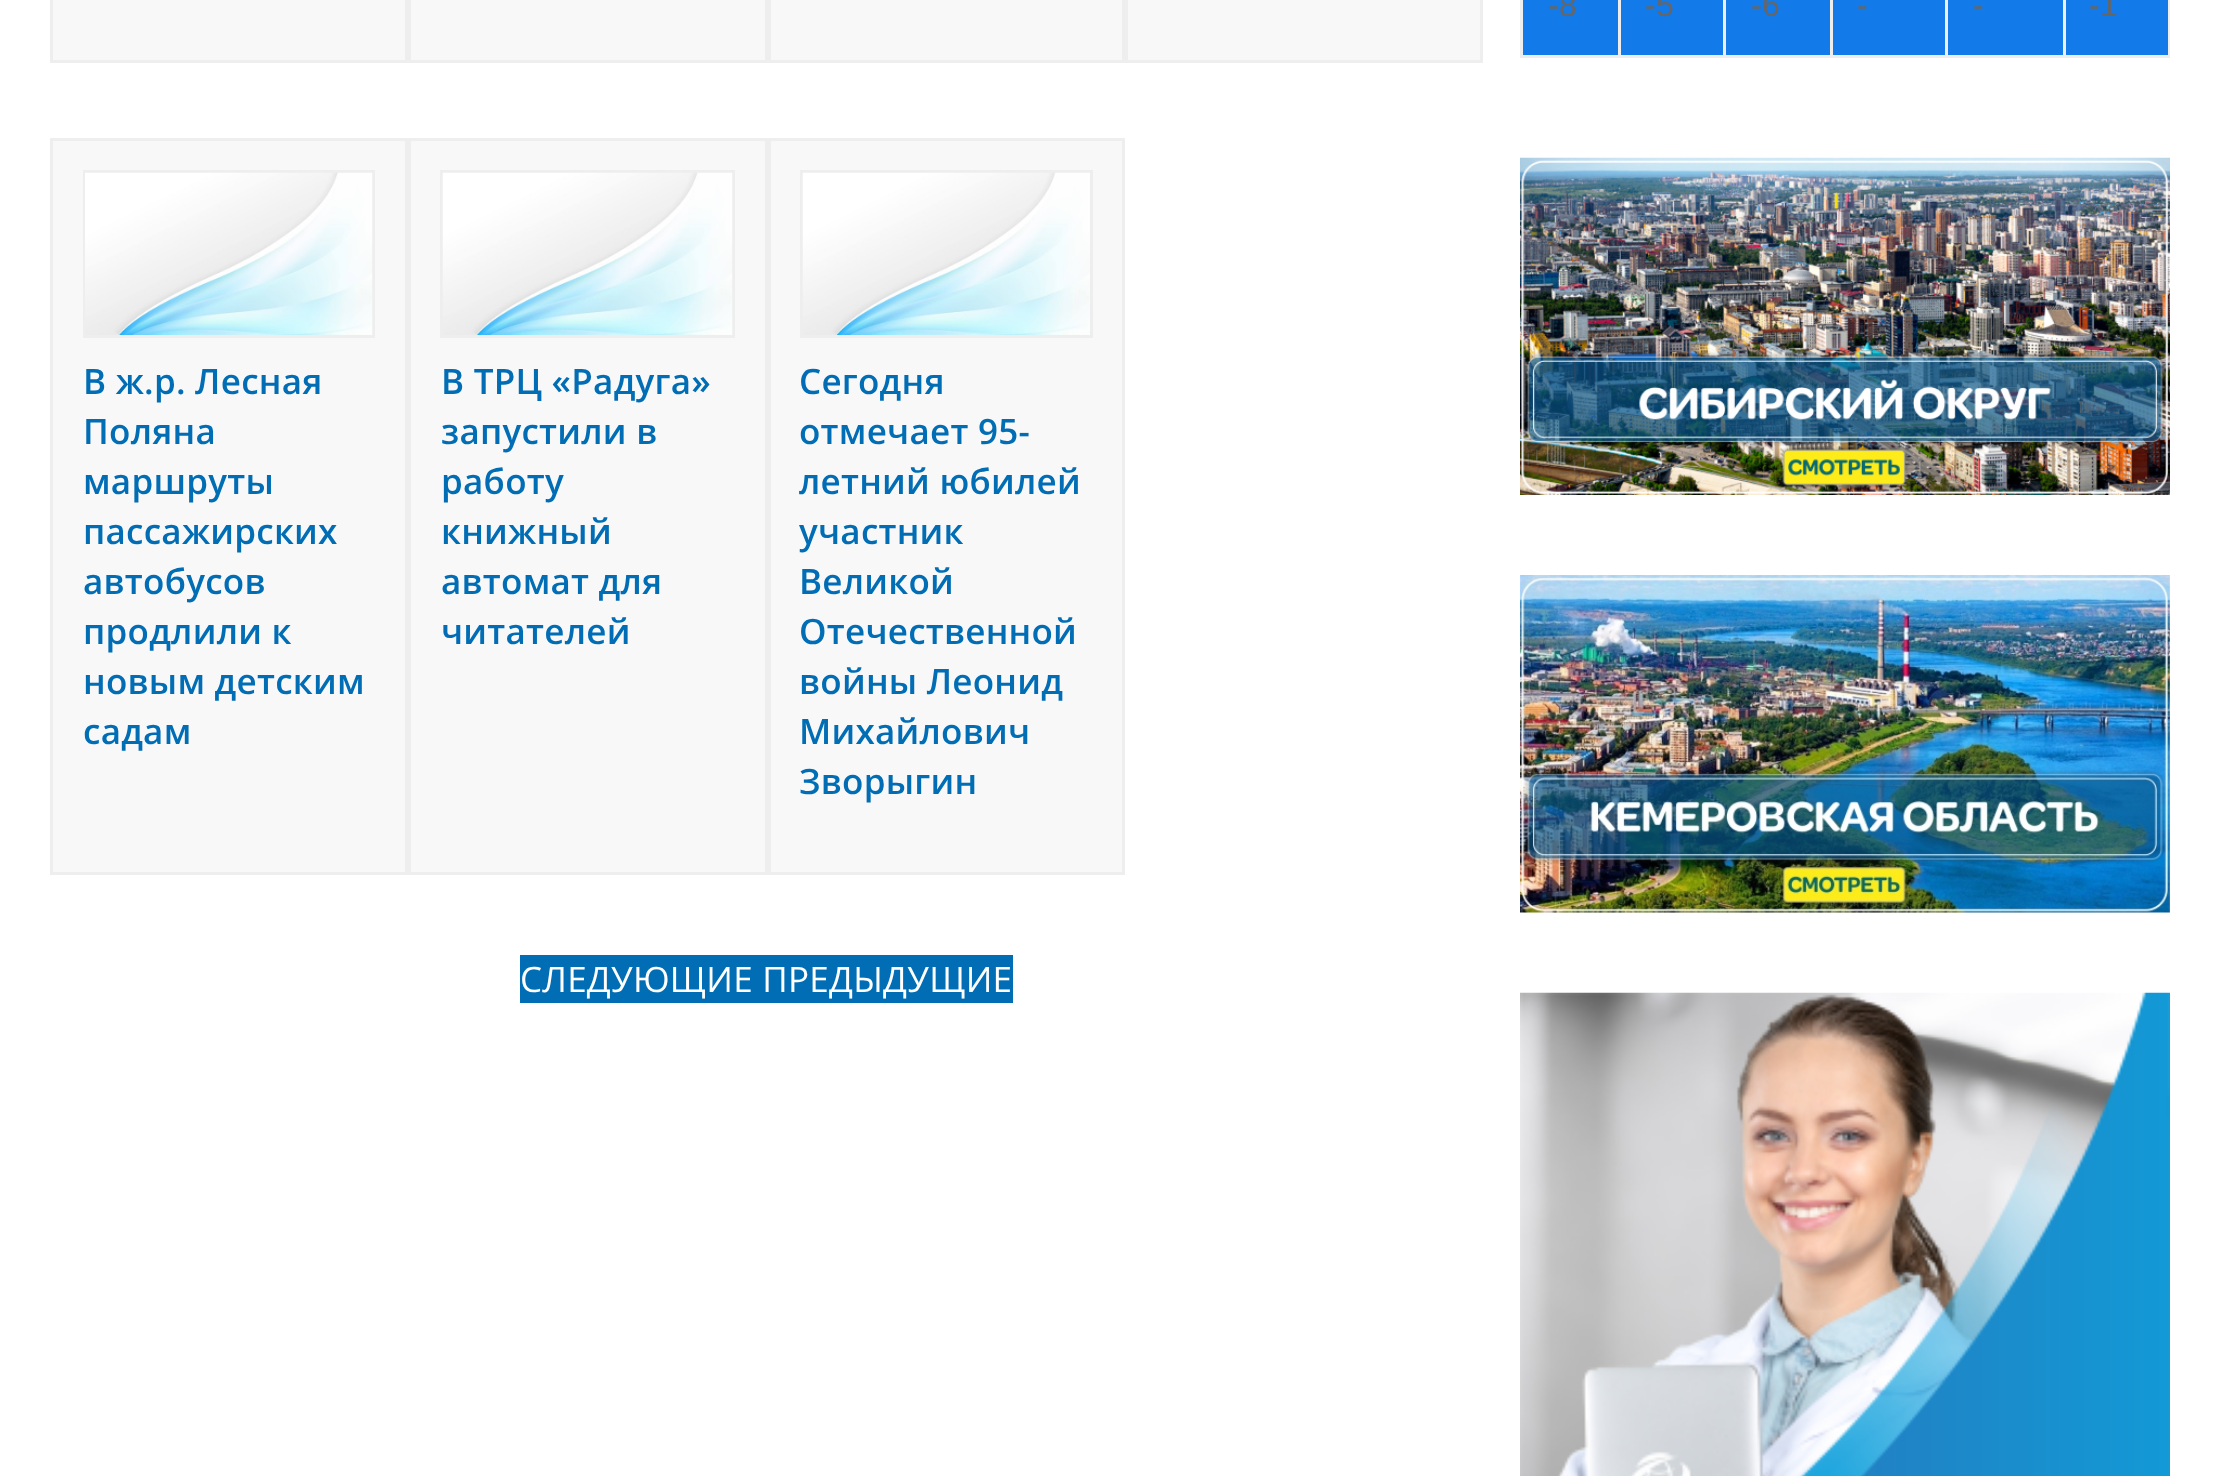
async function draw(canvas) {
  canvas.width = 2220
  canvas.height = 1476
  const ctx = canvas.getContext('2d')
  ctx.miterLimit = 4
  ctx.fontKerning = 'normal'
  async function loadImage(src) {
    const img = new Image()
    img.src = src
    await img.decode()
    return img
  }

  ctx.fillStyle = '#fff'
  ctx.fillRect(0, 0, 2220, 1476)
  ctx.fillStyle = '#137ae9'
  ctx.fillRect(1523, 0, 645, 55)
  ctx.fillStyle = '#eee'
  ctx.fillRect(2168, 0, 2, 58)
  ctx.fillRect(2063, 55, 107, 3)
  ctx.fillRect(2063, 0, 3, 58)
  ctx.fillRect(1945, 55, 120, 3)
  ctx.fillRect(1945, 0, 3, 58)
  ctx.fillRect(1830, 55, 118, 3)
  ctx.fillRect(1830, 0, 3, 58)
  ctx.fillRect(1723, 55, 110, 3)
  ctx.fillRect(1723, 0, 3, 58)
  ctx.fillRect(1618, 55, 107, 3)
  ctx.fillRect(1618, 0, 3, 58)
  ctx.fillRect(1520, 55, 100, 3)
  ctx.fillRect(1520, 0, 3, 58)
  ctx.letterSpacing = '0.25px'
  ctx.font = '32px Liberation Sans'
  ctx.fillStyle = '#666'
  ctx.fillText('-8', 1548, 16)
  ctx.fillText('-5', 1645, 16)
  ctx.fillText('-6', 1751, 16)
  ctx.fillText('-', 1857, 16)
  ctx.fillText('-', 1973, 16)
  ctx.fillText('-1', 2089, 16)
  ctx.drawImage(await loadImage('image0.png'), 1520, 157, 650, 338)
  ctx.drawImage(await loadImage('image1.png'), 1520, 575, 650, 338)
  ctx.drawImage(await loadImage('image2.png'), 1520, 992, 650, 484)
  ctx.fillStyle = '#f8f8f8'
  ctx.beginPath()
  ctx.rect(51.5, -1.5, 355, 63)
  ctx.fill()
  ctx.strokeStyle = '#eee'
  ctx.lineWidth = 3
  ctx.stroke()
  ctx.beginPath()
  ctx.rect(409.5, -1.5, 357, 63)
  ctx.fill()
  ctx.stroke()
  ctx.beginPath()
  ctx.rect(769.5, -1.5, 354, 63)
  ctx.fill()
  ctx.stroke()
  ctx.beginPath()
  ctx.rect(1126.5, -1.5, 355, 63)
  ctx.fill()
  ctx.stroke()
  ctx.beginPath()
  ctx.rect(51.5, 139.5, 355, 734)
  ctx.fill()
  ctx.stroke()
  ctx.strokeRect(84.5, 171.5, 289, 165)
  ctx.drawImage(await loadImage('image3.png'), 85, 172, 288, 163)
  ctx.font = '600 35px Open Sans'
  ctx.fillStyle = '#006db5'
  ctx.fillText('В ж.р. Лесная', 83, 394)
  ctx.fillText('Поляна', 83, 444)
  ctx.fillText('маршруты', 83, 494)
  ctx.fillText('пассажирских', 83, 544)
  ctx.fillText('автобусов', 83, 594)
  ctx.fillText('продлили к', 83, 644)
  ctx.fillText('новым детским', 83, 694)
  ctx.fillText('садам', 83, 744)
  ctx.fillStyle = '#f8f8f8'
  ctx.beginPath()
  ctx.rect(409.5, 139.5, 357, 734)
  ctx.fill()
  ctx.stroke()
  ctx.strokeRect(441.5, 171.5, 292, 165)
  ctx.drawImage(await loadImage('image4.png'), 442, 172, 291, 163)
  ctx.fillStyle = '#006db5'
  ctx.fillText('В ТРЦ «Радуга»', 441, 394)
  ctx.fillText('запустили в', 441, 444)
  ctx.fillText('работу', 441, 494)
  ctx.fillText('книжный', 441, 544)
  ctx.fillText('автомат для', 441, 594)
  ctx.fillText('читателей', 441, 644)
  ctx.fillStyle = '#f8f8f8'
  ctx.beginPath()
  ctx.rect(769.5, 139.5, 354, 734)
  ctx.fill()
  ctx.stroke()
  ctx.strokeRect(801.5, 171.5, 290, 165)
  ctx.drawImage(await loadImage('image5.png'), 802, 172, 288, 163)
  ctx.fillStyle = '#006db5'
  ctx.fillText('Сегодня', 799, 394)
  ctx.fillText('отмечает 95-', 799, 444)
  ctx.fillText('летний юбилей', 799, 494)
  ctx.fillText('участник', 799, 544)
  ctx.fillText('Великой', 799, 594)
  ctx.fillText('Отечественной', 799, 644)
  ctx.fillText('войны Леонид', 799, 694)
  ctx.fillText('Михайлович', 799, 744)
  ctx.fillText('Зворыгин', 799, 794)
  ctx.fillRect(520, 955, 493, 48)
  ctx.font = '35px Open Sans'
  ctx.fillStyle = '#fff'
  ctx.fillText('СЛЕДУЮЩИЕ ПРЕДЫДУЩИЕ', 520, 992)
}

draw(document.querySelector('canvas'))
